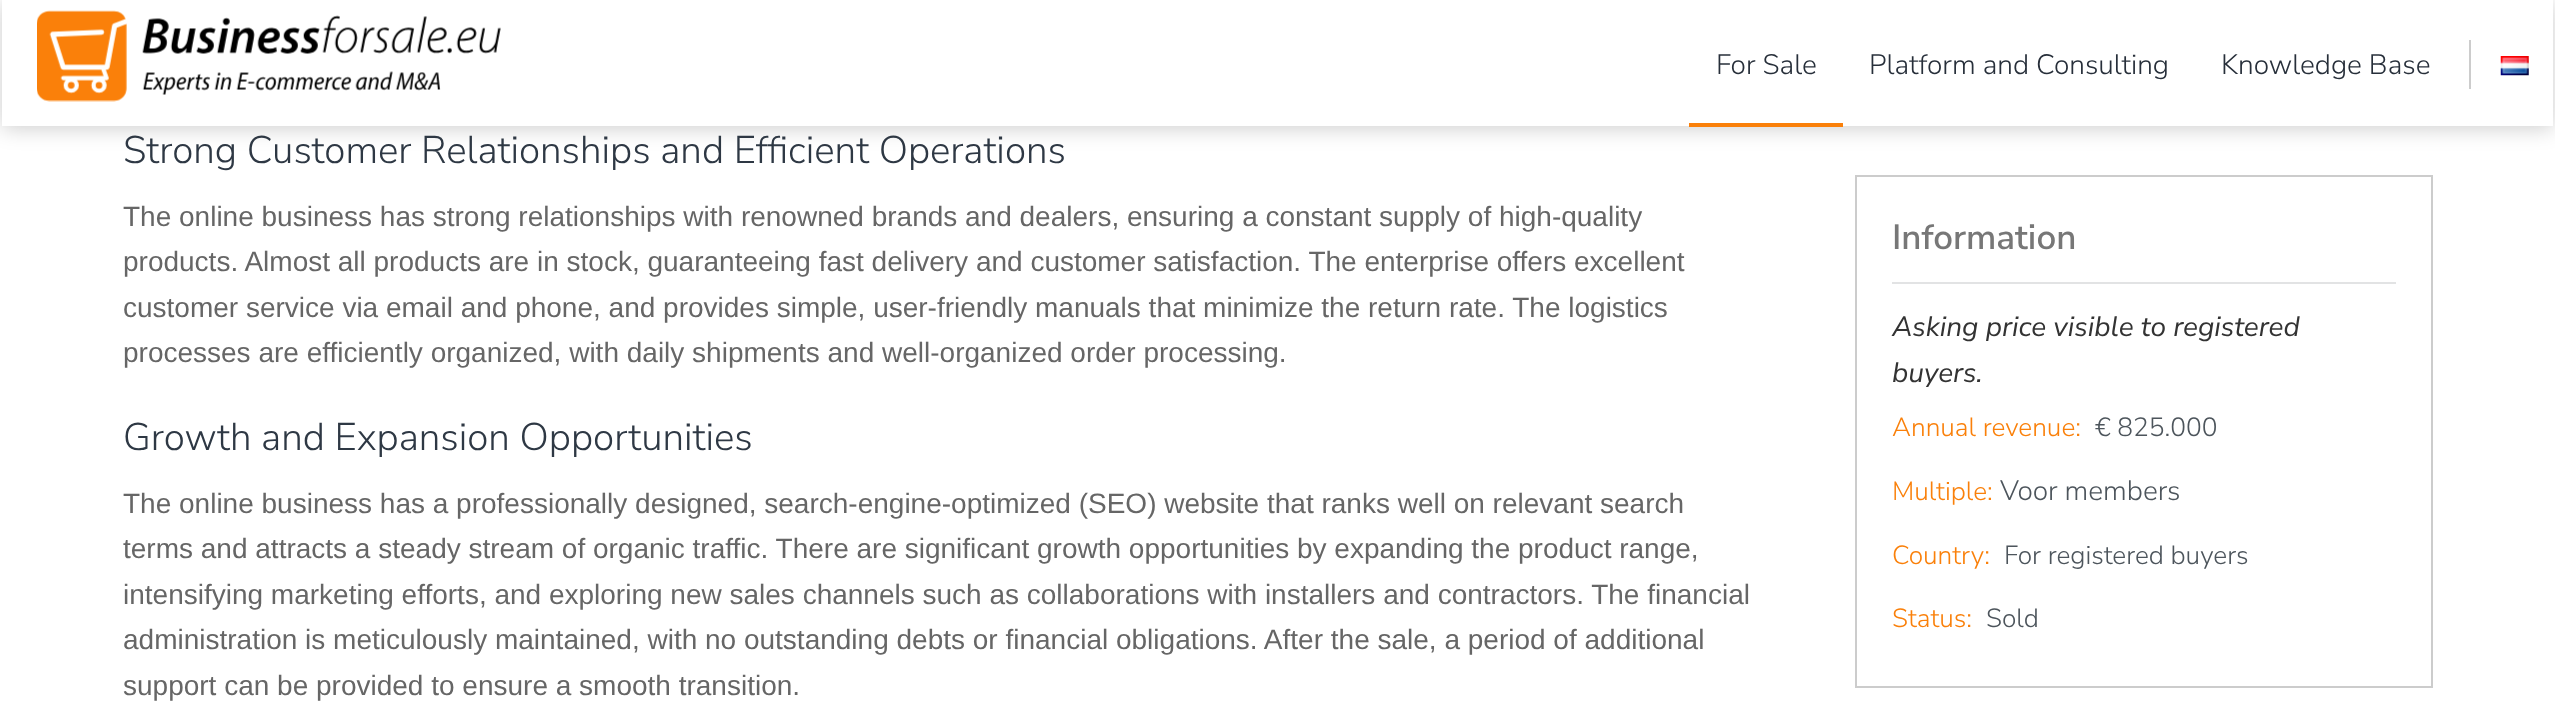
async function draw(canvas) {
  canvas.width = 2555
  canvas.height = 710
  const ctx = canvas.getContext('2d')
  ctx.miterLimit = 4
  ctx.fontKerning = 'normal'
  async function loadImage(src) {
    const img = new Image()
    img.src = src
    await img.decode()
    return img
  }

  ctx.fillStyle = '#fff'
  ctx.fillRect(0, 0, 2555, 710)
  ctx.save()
  ctx.beginPath()
  ctx.moveTo(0, 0)
  ctx.lineTo(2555, 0)
  ctx.lineTo(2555, 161)
  ctx.lineTo(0, 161)
  ctx.closePath()
  ctx.moveTo(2, 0)
  ctx.lineTo(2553, 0)
  ctx.lineTo(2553, 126)
  ctx.lineTo(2, 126)
  ctx.closePath()
  ctx.clip('evenodd')
  ctx.fillStyle = '#00000033'
  ctx.filter = 'blur(10.5px)'
  ctx.beginPath()
  ctx.rect(2, 2, 2551, 126)
  ctx.fill()
  ctx.filter = 'none'
  ctx.restore()
  ctx.drawImage(await loadImage('image0.png'), 37, 10, 464, 92)
  ctx.fillStyle = '#fa800a'
  ctx.fillRect(1689, 123, 154, 4)
  ctx.font = '300 28px Nunito Sans'
  ctx.fillStyle = '#272f3a'
  ctx.fillText('For Sale', 1716, 74)
  ctx.fillText('Platform and Consulting', 1869, 74)
  ctx.fillText('Knowledge Base', 2221, 74)
  ctx.fillStyle = '#ccc'
  ctx.fillRect(2469, 40, 2, 49)
  ctx.drawImage(await loadImage('image1.png'), 2500, 56, 29, 20)
  ctx.font = '300 38.5px Nunito Sans'
  ctx.fillStyle = '#2e3844'
  ctx.fillText('Strong Customer Relationships and Efficient Operations', 123, 163)
  ctx.font = '28px Liberation Sans'
  ctx.fillStyle = '#666'
  ctx.fillText('The online business has strong relationships with renowned brands and dealers, ensuring a constant supply of high-quality', 123, 226)
  ctx.fillText('products. Almost all products are in stock, guaranteeing fast delivery and customer satisfaction. The enterprise offers excellent', 123, 271)
  ctx.fillText('customer service via email and phone, and provides simple, user-friendly manuals that minimize the return rate. The logistics', 123, 317)
  ctx.fillText('processes are efficiently organized, with daily shipments and well-organized order processing.', 123, 362)
  ctx.font = '300 38.5px Nunito Sans'
  ctx.fillStyle = '#2e3844'
  ctx.fillText('Growth and Expansion Opportunities', 123, 450)
  ctx.font = '28px Liberation Sans'
  ctx.fillStyle = '#666'
  ctx.fillText('The online business has a professionally designed, search-engine-optimized (SEO) website that ranks well on relevant search', 123, 513)
  ctx.fillText('terms and attracts a steady stream of organic traffic. There are significant growth opportunities by expanding the product range,', 123, 558)
  ctx.fillText('intensifying marketing efforts, and exploring new sales channels such as collaborations with installers and contractors. The financial', 123, 604)
  ctx.fillText('administration is meticulously maintained, with no outstanding debts or financial obligations. After the sale, a period of additional', 123, 649)
  ctx.fillText('support can be provided to ensure a smooth transition.', 123, 695)
  ctx.strokeStyle = '#ccc'
  ctx.lineWidth = 2
  ctx.strokeRect(1856, 176, 576, 511)
  ctx.fillStyle = '#e2e3e4'
  ctx.fillRect(1892, 282, 504, 2)
  ctx.font = '600 35px Nunito Sans'
  ctx.fillStyle = '#777'
  ctx.fillText('Information', 1892, 249)
  ctx.font = 'italic 28px Nunito Sans'
  ctx.fillStyle = '#333'
  ctx.fillText('Asking price visible to registered', 1892, 336)
  ctx.fillText('buyers.', 1892, 382)
  ctx.font = '300 26.25px Nunito Sans'
  ctx.fillStyle = '#fa800a'
  ctx.fillText('Annual revenue:', 1892, 436)
  ctx.fillStyle = '#4d555c'
  ctx.fillText('€ 825.000', 2095, 436)
  ctx.fillStyle = '#fa800a'
  ctx.fillText('Multiple:', 1892, 500)
  ctx.font = '300 28px Nunito Sans'
  ctx.fillStyle = '#4d555c'
  ctx.fillText('Voor members', 2000, 500)
  ctx.font = '300 26.25px Nunito Sans'
  ctx.fillStyle = '#fa800a'
  ctx.fillText('Country:', 1892, 564)
  ctx.fillStyle = '#4d555c'
  ctx.fillText('For registered buyers', 2004, 564)
  ctx.fillStyle = '#fa800a'
  ctx.fillText('Status:', 1892, 627)
  ctx.fillStyle = '#4d555c'
  ctx.fillText('Sold', 1986, 627)
}

draw(document.querySelector('canvas'))
